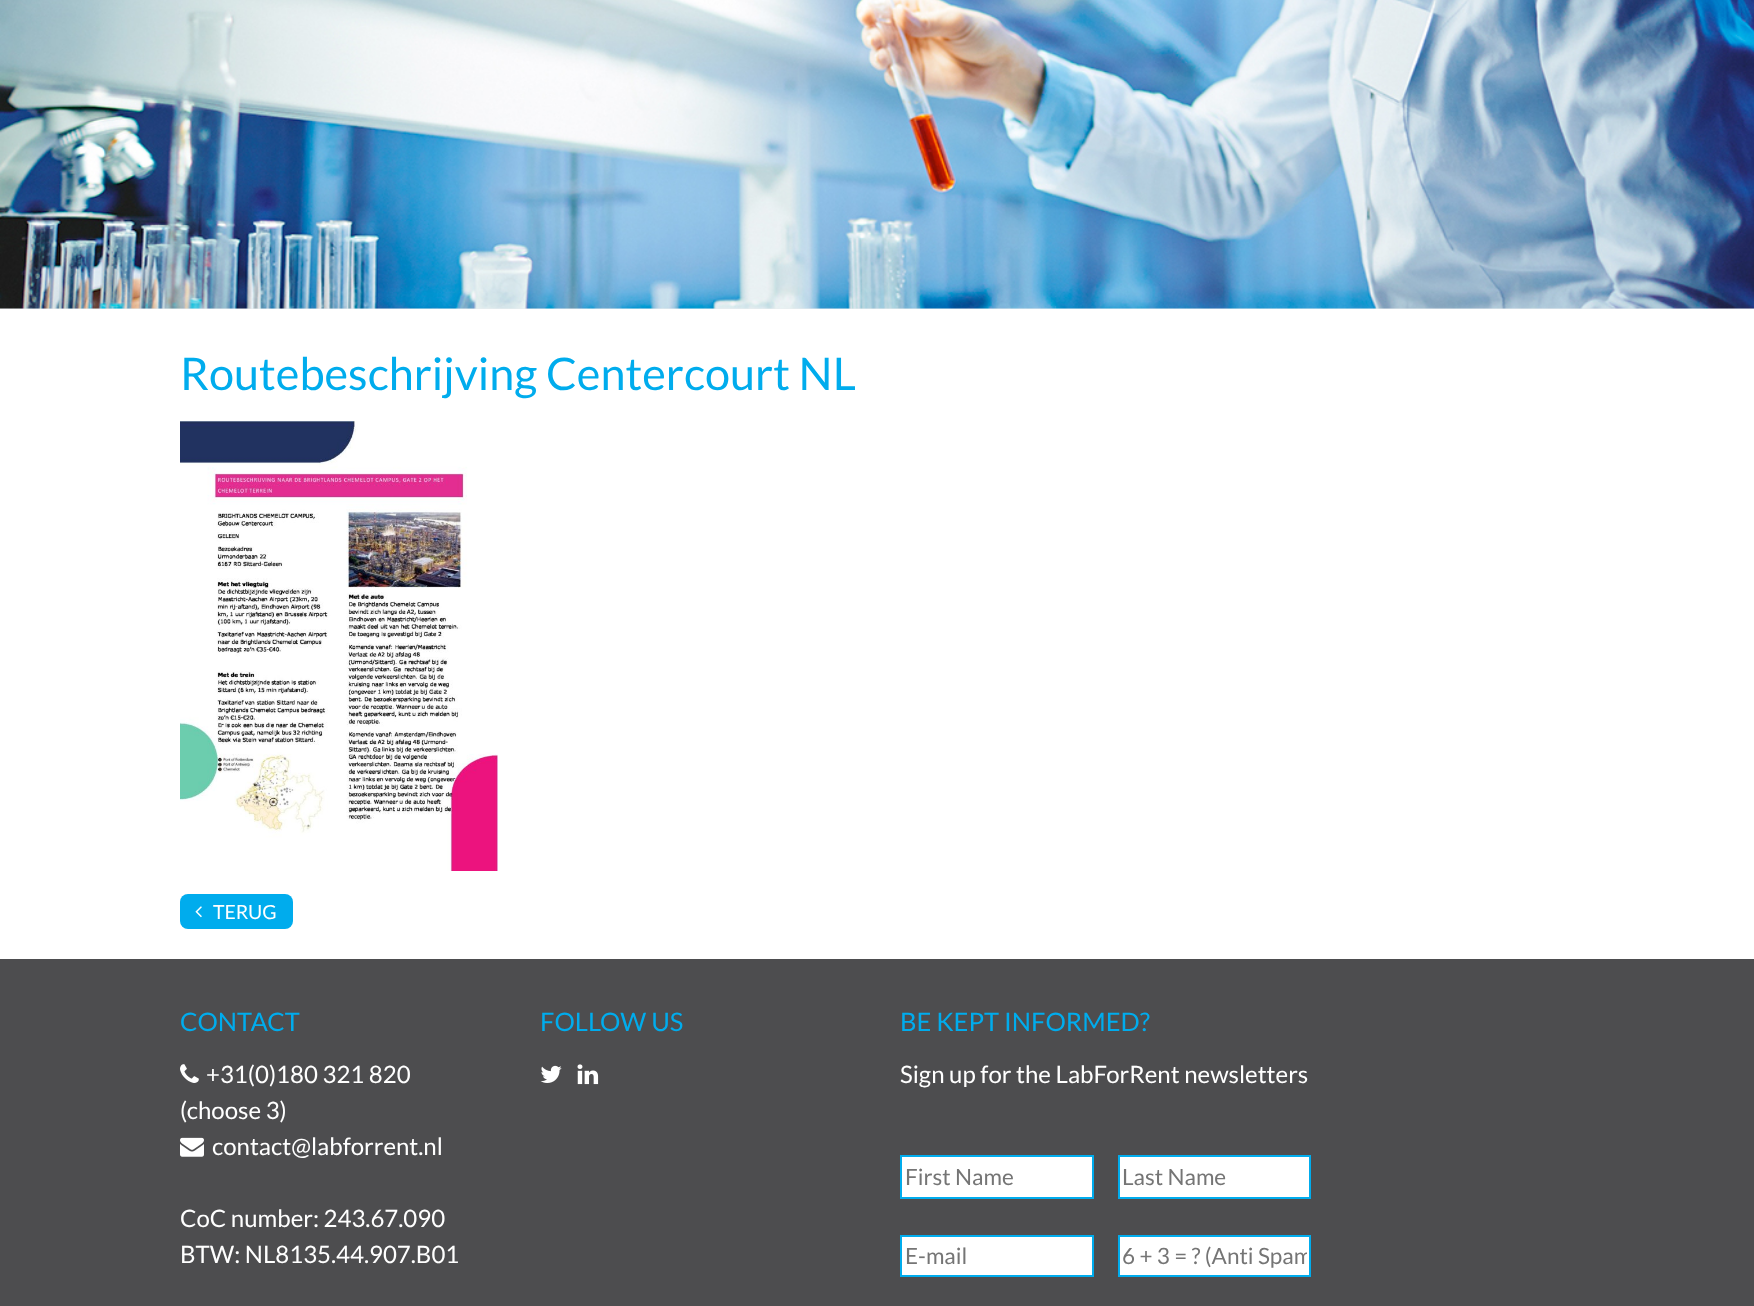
async function draw(canvas) {
  canvas.width = 1754
  canvas.height = 1306
  const ctx = canvas.getContext('2d')
  ctx.miterLimit = 4
  ctx.fontKerning = 'normal'
  async function loadImage(src) {
    const img = new Image()
    img.src = src
    await img.decode()
    return img
  }

  ctx.fillStyle = '#fff'
  ctx.fillRect(0, 0, 1754, 1306)
  ctx.fillStyle = '#e9ecef'
  ctx.fillRect(0, 308, 1754, 1)
  ctx.drawImage(await loadImage('image0.png'), 0, 0, 1754, 309)
  ctx.font = '45px Lato'
  ctx.fillStyle = '#00aced'
  ctx.fillText('Routebeschrijving Centercourt NL', 180, 390)
  ctx.drawImage(await loadImage('image1.png'), 180, 421, 318, 450)
  ctx.beginPath()
  ctx.roundRect(180, 894, 113, 35, 8)
  ctx.fill()
  ctx.drawImage(await loadImage('image2.png'), 195, 906, 7, 12)
  ctx.font = '19.5px Lato'
  ctx.fillStyle = '#fff'
  ctx.fillText('TERUG', 213, 919)
  ctx.fillStyle = '#4d4d4f'
  ctx.fillRect(0, 959, 1754, 347)
  ctx.font = '25.5px Lato'
  ctx.fillStyle = '#00aced'
  ctx.fillText('CONTACT', 180, 1031)
  ctx.drawImage(await loadImage('image3.png'), 180, 1064, 19, 19)
  ctx.font = '24px Lato'
  ctx.fillStyle = '#fff'
  ctx.fillText('+31(0)180 321 820', 206, 1083)
  ctx.fillText('(choose 3)', 180, 1119)
  ctx.drawImage(await loadImage('image4.png'), 180, 1137, 24, 20)
  ctx.fillText('contact@labforrent.nl', 212, 1155)
  ctx.fillText('CoC number: 243.67.090', 180, 1227)
  ctx.fillText('BTW: NL8135.44.907.B01', 180, 1263)
  ctx.font = '25.5px Lato'
  ctx.fillStyle = '#00aced'
  ctx.fillText('FOLLOW US', 540, 1031)
  ctx.drawImage(await loadImage('image5.png'), 540, 1065, 22, 18)
  ctx.drawImage(await loadImage('image6.png'), 577, 1064, 22, 21)
  ctx.fillText('BE KEPT INFORMED?', 900, 1031)
  ctx.font = '24px Lato'
  ctx.fillStyle = '#fff'
  ctx.fillText('Sign up for the LabForRent newsletters', 900, 1083)
  ctx.beginPath()
  ctx.rect(901, 1156, 192, 42)
  ctx.fill()
  ctx.strokeStyle = '#00aced'
  ctx.lineWidth = 2
  ctx.stroke()
  ctx.font = '22.5px Lato'
  ctx.fillStyle = '#757575'
  ctx.fillText('First Name', 905, 1185)
  ctx.fillStyle = '#fff'
  ctx.beginPath()
  ctx.rect(1119, 1156, 191, 42)
  ctx.fill()
  ctx.stroke()
  ctx.fillStyle = '#757575'
  ctx.fillText('Last Name', 1122, 1185)
  ctx.fillStyle = '#fff'
  ctx.beginPath()
  ctx.rect(901, 1236, 192, 40)
  ctx.fill()
  ctx.stroke()
  ctx.fillStyle = '#757575'
  ctx.fillText('E-mail', 905, 1264)
  ctx.fillStyle = '#fff'
  ctx.beginPath()
  ctx.rect(1119, 1236, 191, 40)
  ctx.fill()
  ctx.stroke()
  ctx.save()
  ctx.beginPath()
  ctx.rect(1122, 1242, 185, 27)
  ctx.clip()
  ctx.fillStyle = '#757575'
  ctx.fillText('6 + 3 = ? (Anti Spam', 1122, 1264)
  ctx.restore()
}

draw(document.querySelector('canvas'))
